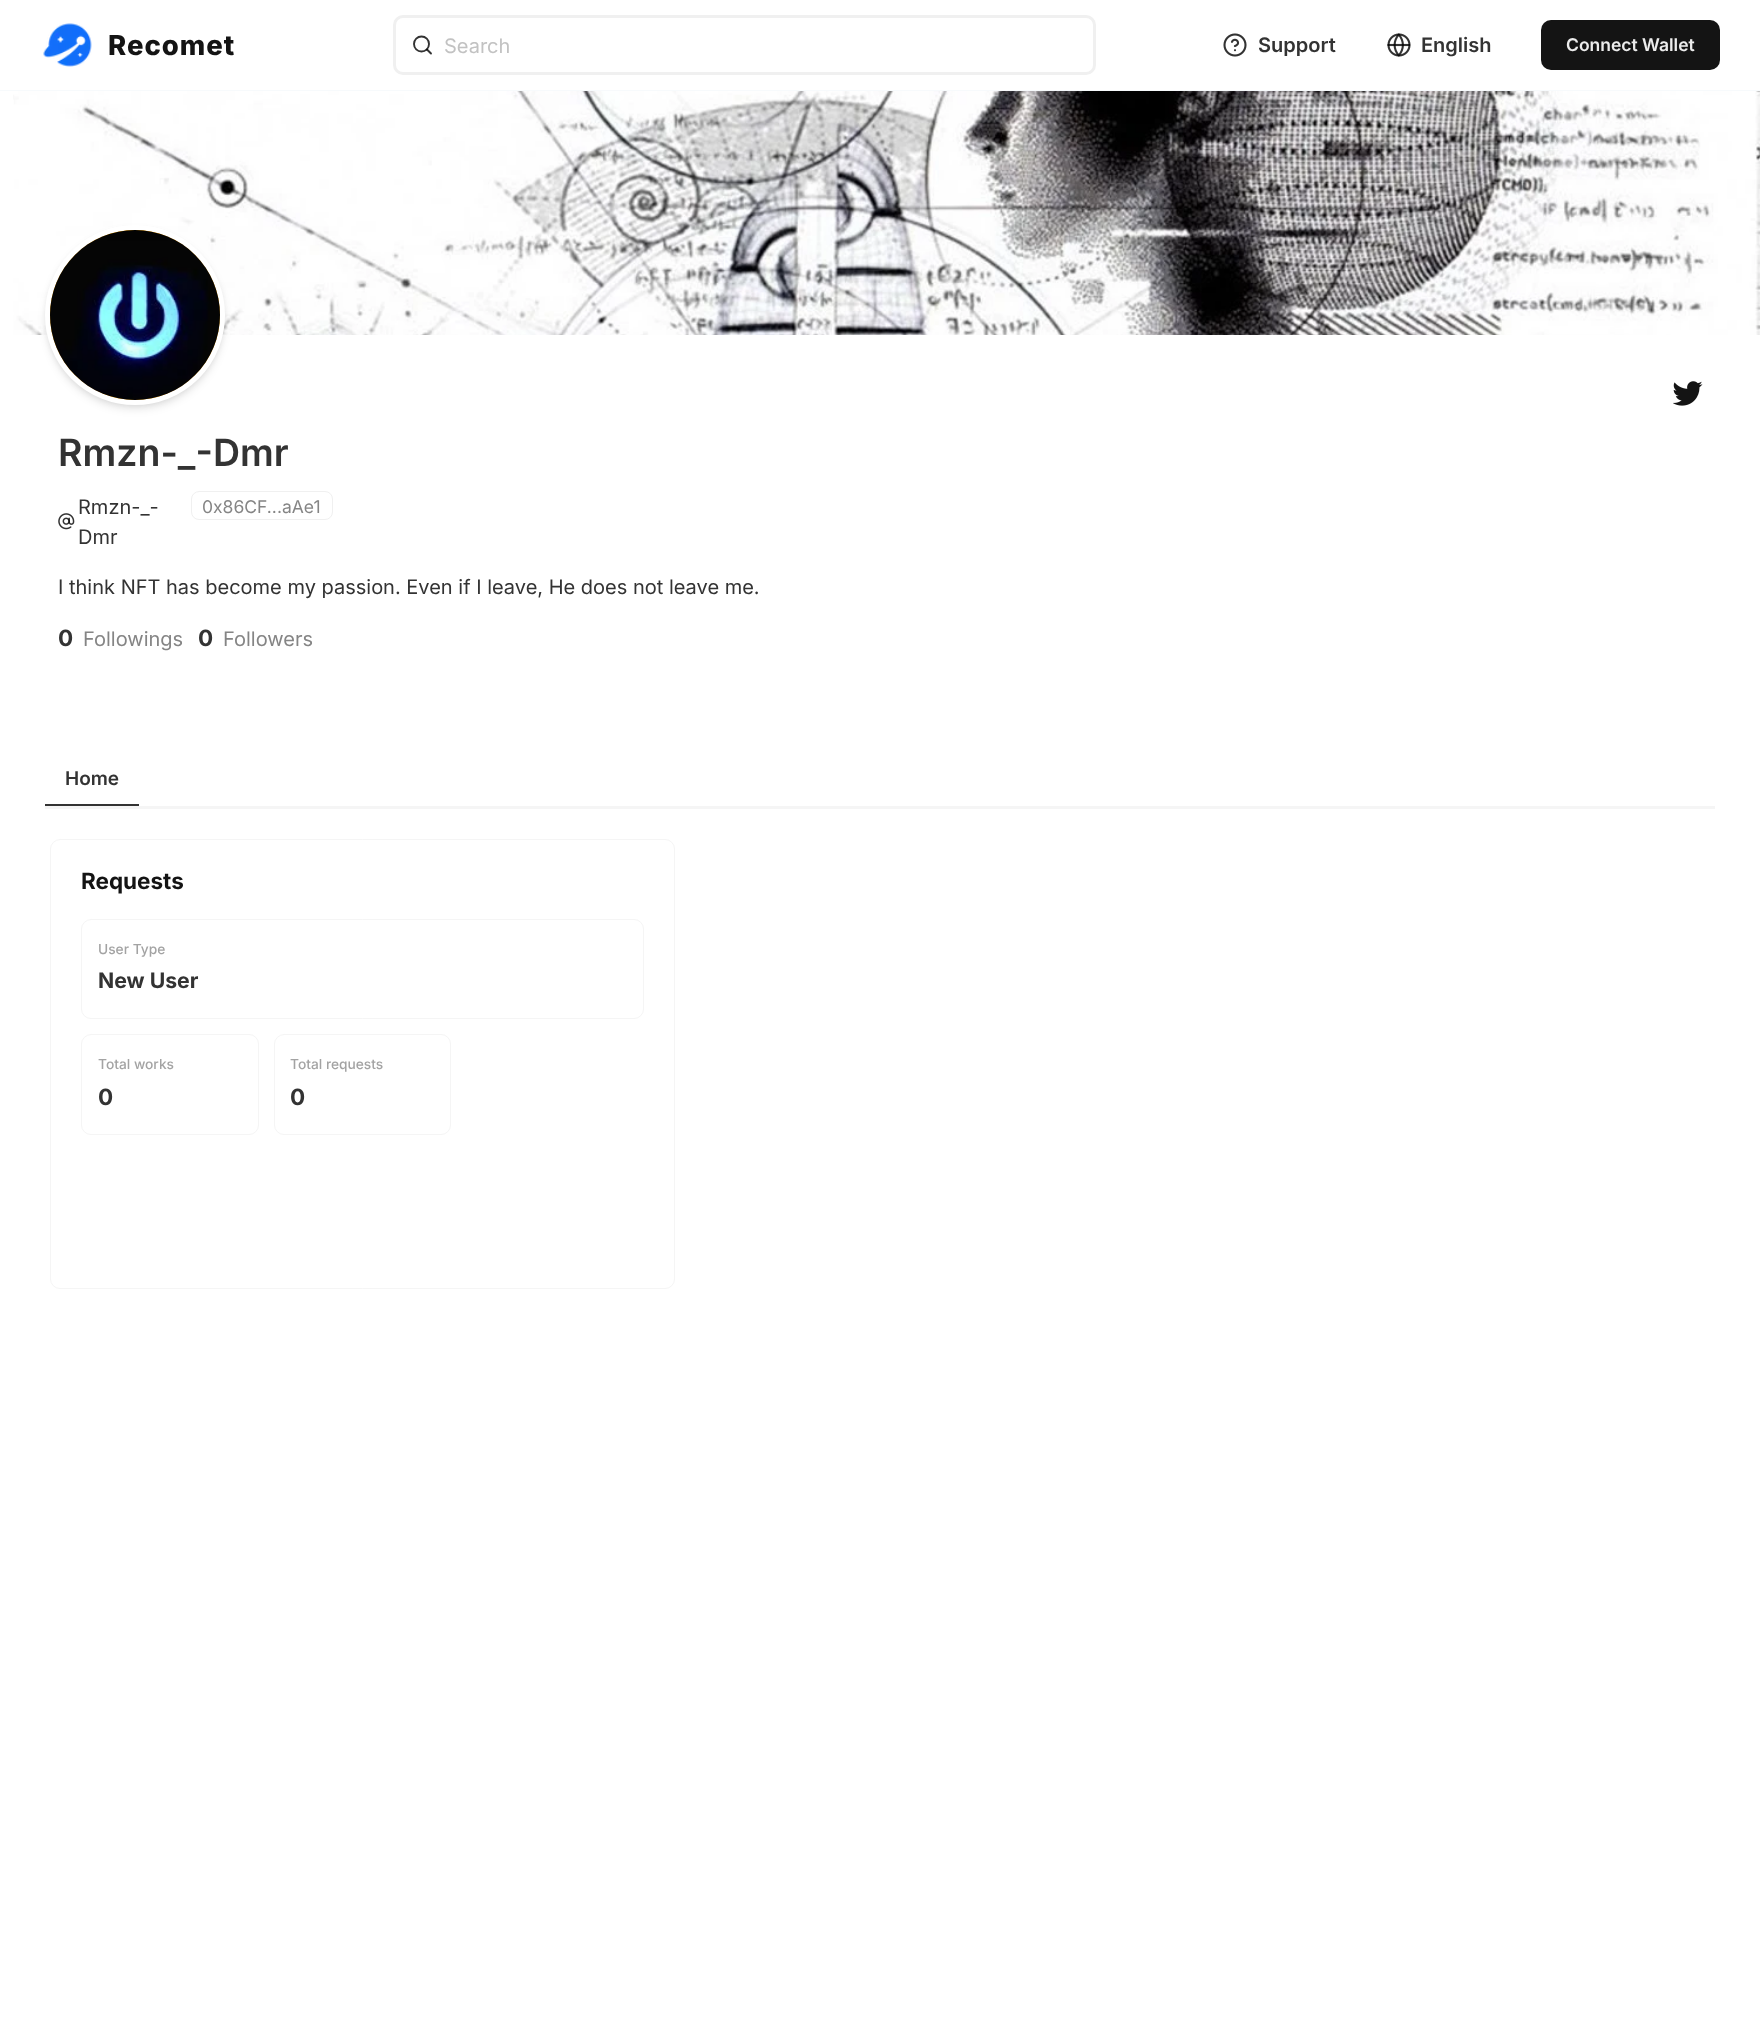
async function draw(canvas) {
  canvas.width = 1760
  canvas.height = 2023
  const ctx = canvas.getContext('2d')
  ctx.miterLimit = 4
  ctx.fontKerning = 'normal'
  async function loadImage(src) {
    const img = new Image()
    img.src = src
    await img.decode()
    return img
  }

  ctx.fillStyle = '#fff'
  ctx.fillRect(0, 0, 1760, 2023)
  ctx.fillStyle = '#f7fafc'
  ctx.fillRect(0, 90, 1760, 1)
  ctx.drawImage(await loadImage('image0.png'), 43, 23, 49, 44)
  ctx.letterSpacing = '1px'
  ctx.font = '800 27.5px Inter'
  ctx.fillStyle = '#141414'
  ctx.fillText('Recomet', 108, 55)
  ctx.beginPath()
  ctx.arc(421.5, 44, 7.5, 0, 2 * Math.PI)
  ctx.strokeStyle = '#333'
  ctx.lineWidth = 1.9
  ctx.stroke()
  ctx.beginPath()
  ctx.moveTo(431, 53.5)
  ctx.lineTo(427, 49.5)
  ctx.strokeStyle = '#000000cc'
  ctx.lineCap = 'round'
  ctx.lineJoin = 'round'
  ctx.stroke()
  ctx.beginPath()
  ctx.roundRect(394.5, 16.5, 700, 57, 8.5)
  ctx.strokeStyle = '#f0f0f0'
  ctx.lineWidth = 3
  ctx.lineJoin = 'miter'
  ctx.stroke()
  ctx.letterSpacing = '0px'
  ctx.font = '20px Inter'
  ctx.fillStyle = '#c2c2c2'
  ctx.fillText('Search', 444, 53)
  ctx.drawImage(await loadImage('image1.png'), 1223, 33, 24, 24)
  ctx.font = '600 20px Inter'
  ctx.fillStyle = '#333'
  ctx.fillText('Support', 1258, 52)
  ctx.drawImage(await loadImage('image2.png'), 1387, 33, 24, 24)
  ctx.fillText('English', 1421, 52)
  ctx.fillStyle = '#141414'
  ctx.beginPath()
  ctx.roundRect(1541, 20, 179, 50, 10)
  ctx.fill()
  ctx.font = '600 17.5px Inter'
  ctx.fillStyle = '#ececec'
  ctx.fillText('Connect Wallet', 1566, 51)
  ctx.drawImage(await loadImage('image3.png'), 13, 91, 1747, 244)
  ctx.drawImage(await loadImage('image4.png'), 1673, 381, 30, 25)
  ctx.fillStyle = '#0000000f'
  ctx.filter = 'blur(2.5px)'
  ctx.beginPath()
  ctx.roundRect(46, 229, 178, 177, 88.5)
  ctx.fill()
  ctx.filter = 'none'
  ctx.fillStyle = '#0000001a'
  ctx.filter = 'blur(4px)'
  ctx.beginPath()
  ctx.roundRect(46, 231, 178, 178, 89)
  ctx.fill()
  ctx.filter = 'none'
  ctx.fillStyle = '#fda500'
  ctx.beginPath()
  ctx.arc(135, 315, 87.5, 0, 2 * Math.PI)
  ctx.fill()
  ctx.strokeStyle = '#fff'
  ctx.lineWidth = 5
  ctx.stroke()
  ctx.drawImage(await loadImage('image5.png'), 50, 230, 170, 170)
  ctx.font = '600 37.5px Inter'
  ctx.fillStyle = '#333'
  ctx.fillText('Rmzn-_-Dmr', 58, 466)
  ctx.drawImage(await loadImage('image6.png'), 58, 513, 17, 17)
  ctx.font = '20px Inter'
  ctx.fillText('Rmzn-_-', 78, 514)
  ctx.fillText('Dmr', 78, 544)
  ctx.beginPath()
  ctx.roundRect(191.5, 491.5, 141, 28, 7.5)
  ctx.strokeStyle = '#f0f0f0'
  ctx.lineWidth = 1
  ctx.stroke()
  ctx.font = '17.5px Inter'
  ctx.fillStyle = '#858585'
  ctx.fillText('0x86CF...aAe1', 202, 513)
  ctx.font = '20px Inter'
  ctx.fillStyle = '#333'
  ctx.fillText('I think NFT has become my passion. Even if I leave, He does not leave me.', 58, 594)
  ctx.font = 'bold 22.5px Inter'
  ctx.fillText('0', 58, 646)
  ctx.font = '20px Inter'
  ctx.fillStyle = '#858585'
  ctx.fillText('Followings', 83, 646)
  ctx.font = 'bold 22.5px Inter'
  ctx.fillStyle = '#333'
  ctx.fillText('0', 198, 646)
  ctx.font = '20px Inter'
  ctx.fillStyle = '#858585'
  ctx.fillText('Followers', 223, 646)
  ctx.fillStyle = '#f5f5f5'
  ctx.fillRect(45, 806, 1670, 3)
  ctx.fillStyle = '#333'
  ctx.fillRect(45, 804, 94, 2)
  ctx.font = '600 19px Inter'
  ctx.fillText('Home', 65, 785)
  ctx.beginPath()
  ctx.roundRect(50.5, 839.5, 624, 449, 9.5)
  ctx.strokeStyle = '#f5f5f5'
  ctx.stroke()
  ctx.font = 'bold 22.5px Inter'
  ctx.fillStyle = '#141414'
  ctx.fillText('Requests', 81, 889)
  ctx.beginPath()
  ctx.roundRect(81.5, 919.5, 562, 99, 9.5)
  ctx.stroke()
  ctx.font = '500 13.75px Inter'
  ctx.fillStyle = '#a3a3a3'
  ctx.fillText('User Type', 98, 954)
  ctx.font = 'bold 21.25px Inter'
  ctx.fillStyle = '#333'
  ctx.fillText('New User', 98, 988)
  ctx.beginPath()
  ctx.roundRect(81.5, 1034.5, 177, 100, 9.5)
  ctx.stroke()
  ctx.font = '500 13.75px Inter'
  ctx.fillStyle = '#a3a3a3'
  ctx.fillText('Total works', 98, 1069)
  ctx.font = 'bold 22.5px Inter'
  ctx.fillStyle = '#333'
  ctx.fillText('0', 98, 1105)
  ctx.beginPath()
  ctx.roundRect(274.5, 1034.5, 176, 100, 9.5)
  ctx.stroke()
  ctx.font = '500 13.75px Inter'
  ctx.fillStyle = '#a3a3a3'
  ctx.fillText('Total requests', 290, 1069)
  ctx.font = 'bold 22.5px Inter'
  ctx.fillStyle = '#333'
  ctx.fillText('0', 290, 1105)
}

draw(document.querySelector('canvas'))
